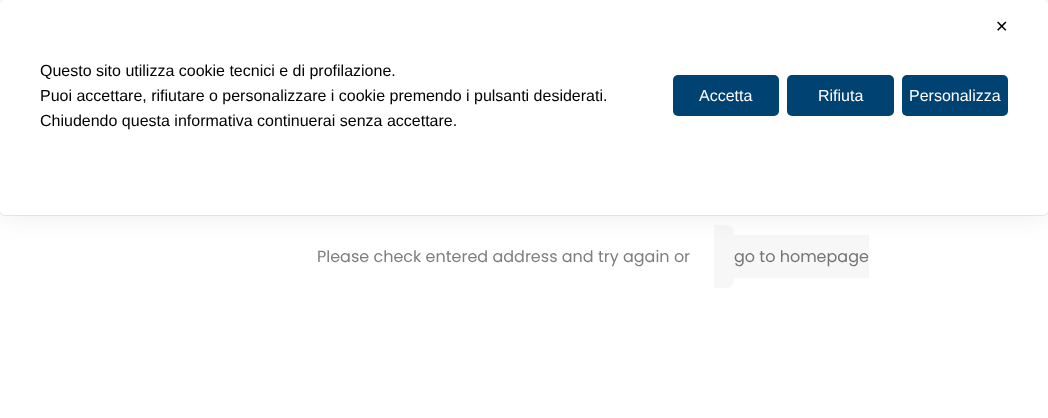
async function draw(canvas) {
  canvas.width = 1048
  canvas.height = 418
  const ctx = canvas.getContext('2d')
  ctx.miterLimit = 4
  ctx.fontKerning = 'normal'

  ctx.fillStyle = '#fff'
  ctx.fillRect(0, 0, 1048, 418)
  ctx.beginPath()
  ctx.roundRect(-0.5, -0.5, 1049, 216, 5.5)
  ctx.strokeStyle = '#ebebeb'
  ctx.stroke()
  ctx.fillStyle = '#f7f7f7'
  ctx.fillRect(734, 235, 135, 43)
  ctx.beginPath()
  ctx.roundRect(714, 225, 20, 63, [0, 8, 8, 0])
  ctx.fill()
  ctx.fillStyle = '#0000000d'
  ctx.filter = 'blur(12px)'
  ctx.beginPath()
  ctx.roundRect(0, 6, 1048, 215, 5)
  ctx.fill()
  ctx.filter = 'none'
  ctx.fillStyle = '#fff'
  ctx.beginPath()
  ctx.roundRect(0, 0, 1048, 215, 5)
  ctx.fill()
  ctx.font = '16px DejaVu Sans'
  ctx.fillStyle = '#000'
  ctx.fillText('✕', 995, 32)
  ctx.font = '16px Liberation Sans'
  ctx.fillText('Questo sito utilizza cookie tecnici e di profilazione.', 40, 76)
  ctx.fillText('Puoi accettare, rifiutare o personalizzare i cookie premendo i pulsanti desiderati.', 40, 101)
  ctx.fillText('Chiudendo questa informativa continuerai senza accettare.', 40, 126)
  ctx.fillStyle = '#004272'
  ctx.beginPath()
  ctx.roundRect(673, 75, 106, 41, 5)
  ctx.fill()
  ctx.fillStyle = '#fff'
  ctx.fillText('Accetta', 699, 101)
  ctx.fillStyle = '#004272'
  ctx.beginPath()
  ctx.roundRect(787, 75, 107, 41, 5)
  ctx.fill()
  ctx.fillStyle = '#fff'
  ctx.fillText('Rifiuta', 818, 101)
  ctx.fillStyle = '#004272'
  ctx.beginPath()
  ctx.roundRect(902, 75, 106, 41, 5)
  ctx.fill()
  ctx.fillStyle = '#fff'
  ctx.fillText('Personalizza', 909, 101)
  ctx.font = '16px Poppins'
  ctx.fillStyle = '#7e7e7e'
  ctx.fillText('Please check entered address and try again or', 317, 262)
  ctx.fillStyle = '#747474'
  ctx.fillText('go to homepage', 734, 262)
}

draw(document.querySelector('canvas'))
